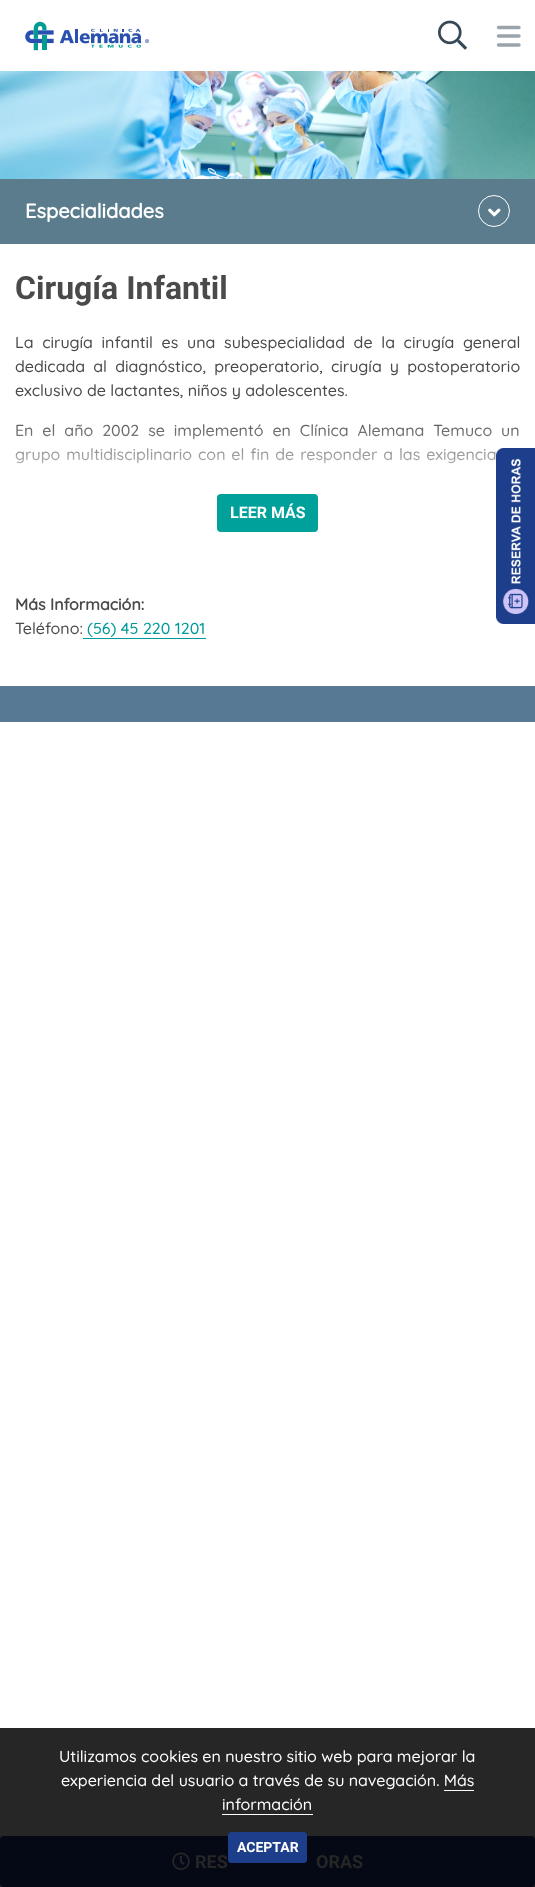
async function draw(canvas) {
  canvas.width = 535
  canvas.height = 1887
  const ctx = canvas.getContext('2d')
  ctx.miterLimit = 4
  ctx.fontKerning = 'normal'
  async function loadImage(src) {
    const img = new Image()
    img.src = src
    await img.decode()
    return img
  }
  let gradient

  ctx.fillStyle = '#fff'
  ctx.fillRect(0, 0, 535, 1887)
  ctx.fillStyle = '#262626'
  ctx.fillRect(0, 1728, 535, 159)
  ctx.drawImage(await loadImage('image0.png'), 25, 21, 125, 30)
  ctx.drawImage(await loadImage('image1.png'), 438, 20, 29, 30)
  ctx.beginPath()
  ctx.moveTo(498.5, 27.5)
  ctx.lineTo(519, 27.5)
  ctx.moveTo(498.5, 36)
  ctx.lineTo(519, 36)
  ctx.moveTo(498.5, 45)
  ctx.lineTo(519, 45)
  ctx.strokeStyle = '#9ba4aa'
  ctx.lineWidth = 3.4
  ctx.lineCap = 'round'
  ctx.stroke()
  ctx.drawImage(await loadImage('image2.png'), 0, 71, 535, 108)
  ctx.fillStyle = '#5a7c8d'
  ctx.fillRect(0, 179, 535, 65)
  ctx.font = 'bold 20px Quicksand'
  ctx.fillStyle = '#fff'
  ctx.fillText('Especialidades', 25, 218)
  ctx.beginPath()
  ctx.arc(494, 211, 15.5, 0, 2 * Math.PI)
  ctx.strokeStyle = '#fff'
  ctx.lineWidth = 1
  ctx.stroke()
  ctx.drawImage(await loadImage('image3.png'), 488, 208, 13, 9)
  ctx.font = 'bold 32px Roboto'
  ctx.fillStyle = '#4a4a4a'
  ctx.fillText('Cirugía Infantil', 15, 299)
  ctx.wordSpacing = '4.25px'
  ctx.font = '300 16px Quicksand'
  ctx.fillText('La cirugía infantil es una subespecialidad de la cirugía general', 15, 348)
  ctx.wordSpacing = '3.75px'
  ctx.fillText('dedicada al diagnóstico, preoperatorio, cirugía y postoperatorio', 15, 372)
  ctx.wordSpacing = '0px'
  ctx.fillText('exclusivo de lactantes, niños y adolescentes.', 15, 396)
  ctx.wordSpacing = '4.5px'
  ctx.fillText('En el año 2002 se implementó en Clínica Alemana Temuco un', 15, 436)
  ctx.wordSpacing = '1.5px'
  ctx.fillText('grupo multidisciplinario con el fin de responder a las exigencia', 15, 460)
  gradient = ctx.createLinearGradient(268, 414, 268, 592)
  gradient.addColorStop(0, '#ffffff00')
  gradient.addColorStop(0.41, '#ffffffd1')
  gradient.addColorStop(1, '#fff')
  ctx.fillStyle = gradient
  ctx.fillRect(15, 424, 504, 40)
  ctx.fillStyle = '#00a19b'
  ctx.beginPath()
  ctx.roundRect(217, 494, 101, 38, 4)
  ctx.fill()
  ctx.wordSpacing = '0px'
  ctx.font = 'bold 16px Roboto'
  ctx.fillStyle = '#fff'
  ctx.fillText('LEER MÁS', 230, 518)
  ctx.fillStyle = '#040915'
  ctx.beginPath()
  ctx.roundRect(0, 1836, 535, 51, 4)
  ctx.fill()
  ctx.drawImage(await loadImage('image4.png'), 172, 1852, 18, 18)
  ctx.font = 'bold 18px Roboto'
  ctx.fillStyle = '#262626'
  ctx.fillText('RES', 195, 1868)
  ctx.fillText('ORAS', 316, 1868)
  ctx.font = 'bold 16px Quicksand'
  ctx.fillStyle = '#4a4a4a'
  ctx.fillText('Más Información:', 15, 610)
  ctx.font = '300 16px Quicksand'
  ctx.fillText('Teléfono:', 15, 634)
  ctx.fillStyle = '#099'
  ctx.fillText('(56) 45 220 1201', 87, 634)
  ctx.fillRect(83, 638, 123, 1)
  ctx.drawImage(await loadImage('image5.png'), 496, 448, 39, 176)
  ctx.fillStyle = '#587993'
  ctx.fillRect(0, 686, 535, 36)
  ctx.fillStyle = '#fff'
  ctx.fillText('Utilizamos cookies en nuestro sitio web para mejorar la', 59, 1762)
  ctx.fillText('experiencia del usuario a través de su navegación. Más', 61, 1786)
  ctx.fillText('información', 222, 1810)
  ctx.fillRect(444, 1790, 30, 1)
  ctx.fillRect(222, 1814, 91, 1)
  ctx.fillStyle = '#1d3e8b'
  ctx.beginPath()
  ctx.roundRect(228.5, 1832.5, 78, 30, 2.5)
  ctx.fill()
  ctx.strokeStyle = '#1d3e8b'
  ctx.stroke()
  ctx.font = 'bold 14px Roboto'
  ctx.fillStyle = '#fff'
  ctx.fillText('ACEPTAR', 237, 1852)
}

draw(document.querySelector('canvas'))
